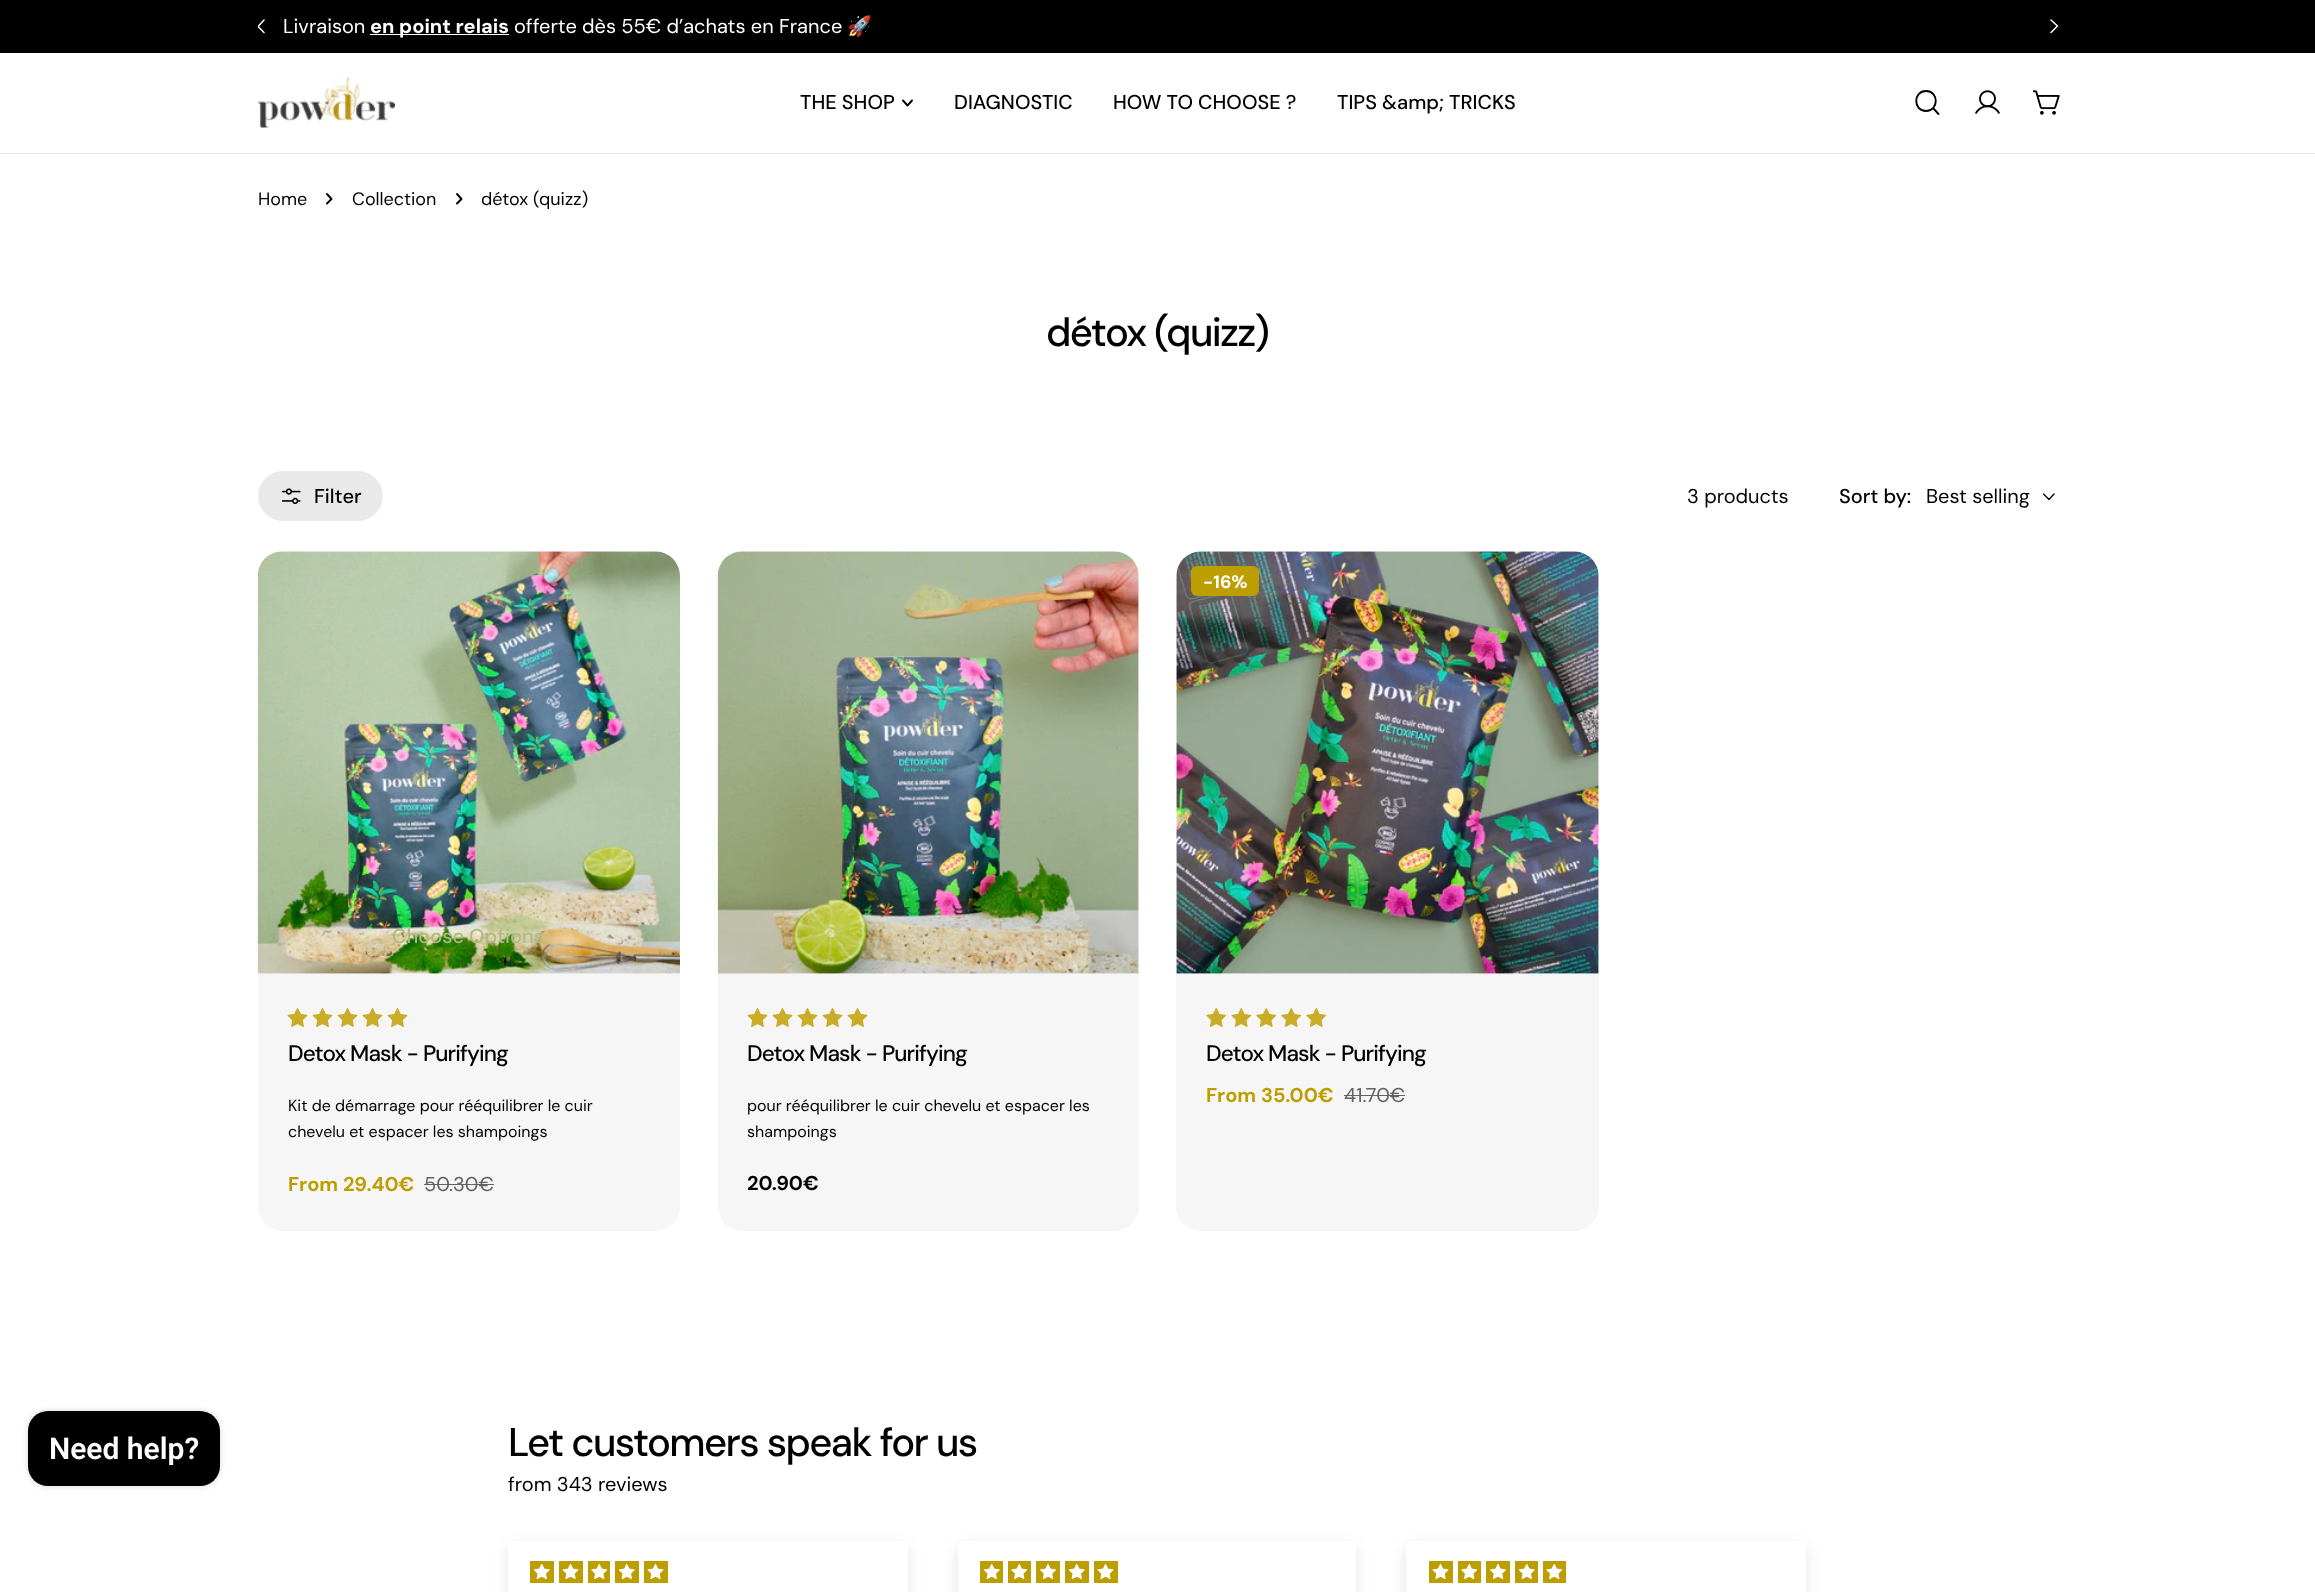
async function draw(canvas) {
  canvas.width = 2315
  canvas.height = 1592
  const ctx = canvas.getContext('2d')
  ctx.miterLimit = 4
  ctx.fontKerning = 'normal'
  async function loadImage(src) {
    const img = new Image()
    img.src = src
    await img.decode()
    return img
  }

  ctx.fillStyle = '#fff'
  ctx.fillRect(0, 0, 2315, 1592)
  ctx.fillStyle = '#00000026'
  ctx.filter = 'blur(3px)'
  ctx.beginPath()
  ctx.roundRect(28, 1411, 192, 75, 20)
  ctx.fill()
  ctx.filter = 'none'
  ctx.fillStyle = '#000'
  ctx.beginPath()
  ctx.roundRect(28, 1411, 192, 75, 20)
  ctx.fill()
  ctx.font = '600 30px Roboto'
  ctx.fillStyle = '#fff'
  ctx.fillText('Need help?', 49, 1459)
  ctx.fillStyle = '#000'
  ctx.fillRect(0, 0, 2315, 53)
  ctx.font = '20px DM Sans'
  ctx.fillStyle = '#fff'
  ctx.fillText('Livraison', 283, 33)
  ctx.fillRect(370, 34, 139, 1)
  ctx.font = 'bold 20px DM Sans'
  ctx.fillText('en point relais', 370, 33)
  ctx.font = '20px DM Sans'
  ctx.fillText('offerte dès 55€ d’achats en France', 514, 33)
  ctx.font = '20px Noto Color Emoji'
  ctx.fillText('🚀', 847, 33)
  ctx.save()
  ctx.beginPath()
  ctx.rect(258, 16, 13, 20)
  ctx.clip()
  ctx.beginPath()
  ctx.moveTo(264, 32.5)
  ctx.lineTo(258, 26.5)
  ctx.lineTo(264, 20)
  ctx.strokeStyle = '#fff'
  ctx.lineWidth = 1.5
  ctx.lineCap = 'round'
  ctx.lineJoin = 'round'
  ctx.stroke()
  ctx.restore()
  ctx.beginPath()
  ctx.moveTo(2051, 20)
  ctx.lineTo(2057.5, 26)
  ctx.lineTo(2051, 32.5)
  ctx.strokeStyle = '#fff'
  ctx.lineWidth = 1.5
  ctx.lineCap = 'round'
  ctx.lineJoin = 'round'
  ctx.stroke()
  ctx.fillStyle = '#e6e6e6'
  ctx.fillRect(0, 153, 2315, 1)
  ctx.drawImage(await loadImage('image0.png'), 257, 77, 138, 51)
  ctx.font = '500 20px DM Sans'
  ctx.fillStyle = '#000'
  ctx.fillText('THE SHOP', 800, 109)
  ctx.beginPath()
  ctx.moveTo(912, 100.5)
  ctx.lineTo(907.5, 105.5)
  ctx.lineTo(903, 100.5)
  ctx.strokeStyle = '#000'
  ctx.lineWidth = 1.9
  ctx.stroke()
  ctx.fillText('DIAGNOSTIC', 954, 109)
  ctx.fillText('HOW TO CHOOSE ?', 1113, 109)
  ctx.fillText('TIPS &amp; TRICKS', 1337, 109)
  ctx.beginPath()
  ctx.moveTo(1926, 111)
  ctx.bezierCurveTo(1939, 111, 1939, 91, 1926, 91)
  ctx.bezierCurveTo(1913, 91, 1913, 111, 1926, 111)
  ctx.closePath()
  ctx.moveTo(1933, 108)
  ctx.lineTo(1938.5, 114)
  ctx.stroke()
  ctx.drawImage(await loadImage('image1.png'), 1975, 90, 25, 24)
  ctx.drawImage(await loadImage('image2.png'), 2033, 90, 27, 25)
  ctx.font = '18px DM Sans'
  ctx.fillText('Home', 258, 205)
  ctx.beginPath()
  ctx.moveTo(327, 194)
  ctx.lineTo(331.5, 199)
  ctx.lineTo(327, 203.5)
  ctx.stroke()
  ctx.fillText('Collection', 352, 205)
  ctx.beginPath()
  ctx.moveTo(457, 194)
  ctx.lineTo(461.5, 199)
  ctx.lineTo(457, 203.5)
  ctx.stroke()
  ctx.fillText('détox (quizz)', 481, 205)
  ctx.letterSpacing = '-1.6px'
  ctx.font = '500 40px DM Sans'
  ctx.fillText('détox (quizz)', 1046, 346)
  ctx.fillStyle = '#e9e9e9'
  ctx.beginPath()
  ctx.roundRect(258.5, 471.5, 124, 49, 24.5)
  ctx.fill()
  ctx.strokeStyle = '#e9e9e9'
  ctx.lineWidth = 1
  ctx.lineJoin = 'miter'
  ctx.stroke()
  ctx.drawImage(await loadImage('image3.png'), 281, 488, 20, 17)
  ctx.letterSpacing = '0px'
  ctx.font = '500 20px DM Sans'
  ctx.fillStyle = '#000'
  ctx.fillText('Filter', 314, 503)
  ctx.font = '20px DM Sans'
  ctx.fillText('3 products', 1687, 503)
  ctx.font = '500 20px DM Sans'
  ctx.fillText('Sort by:', 1839, 503)
  ctx.font = '20px DM Sans'
  ctx.fillText('Best selling', 1926, 503)
  ctx.beginPath()
  ctx.moveTo(2054, 494)
  ctx.lineTo(2049, 499.5)
  ctx.lineTo(2043.5, 494)
  ctx.strokeStyle = '#000'
  ctx.lineWidth = 1.3
  ctx.lineJoin = 'round'
  ctx.stroke()
  ctx.fillStyle = '#f6f6f6'
  ctx.beginPath()
  ctx.roundRect(258, 551, 422, 680, 25)
  ctx.fill()
  ctx.drawImage(await loadImage('image4.png'), 257, 551, 423, 423)
  ctx.font = '500 20px DM Sans'
  ctx.fillStyle = '#adba81'
  ctx.fillText('Choose Options', 392, 943)
  ctx.drawImage(await loadImage('image5.png'), 287, 1008, 21, 19)
  ctx.drawImage(await loadImage('image5.png'), 312, 1008, 21, 19)
  ctx.drawImage(await loadImage('image5.png'), 337, 1008, 21, 19)
  ctx.drawImage(await loadImage('image5.png'), 362, 1008, 21, 19)
  ctx.drawImage(await loadImage('image5.png'), 387, 1008, 21, 19)
  ctx.letterSpacing = '-0.9px'
  ctx.font = '500 22.5px DM Sans'
  ctx.fillStyle = '#000'
  ctx.fillText('Detox Mask - Purifying', 288, 1061)
  ctx.letterSpacing = '0px'
  ctx.font = '16px DM Sans'
  ctx.fillText('Kit de démarrage pour rééquilibrer le cuir', 288, 1111)
  ctx.fillText('chevelu et espacer les shampoings', 288, 1137)
  ctx.font = 'bold 20px DM Sans'
  ctx.fillStyle = '#bd9e00'
  ctx.fillText('From 29.40€', 288, 1191)
  ctx.font = '20px DM Sans'
  ctx.fillStyle = '#626262'
  ctx.fillText('50.30€', 424, 1191)
  ctx.fillRect(424, 1184, 70, 1)
  ctx.fillStyle = '#f6f6f6'
  ctx.beginPath()
  ctx.roundRect(718, 551, 421, 680, 25)
  ctx.fill()
  ctx.drawImage(await loadImage('image6.png'), 717, 551, 422, 423)
  ctx.drawImage(await loadImage('image5.png'), 747, 1008, 21, 19)
  ctx.drawImage(await loadImage('image5.png'), 772, 1008, 21, 19)
  ctx.drawImage(await loadImage('image5.png'), 797, 1008, 21, 19)
  ctx.drawImage(await loadImage('image5.png'), 822, 1008, 21, 19)
  ctx.drawImage(await loadImage('image5.png'), 847, 1008, 21, 19)
  ctx.letterSpacing = '-0.9px'
  ctx.font = '500 22.5px DM Sans'
  ctx.fillStyle = '#000'
  ctx.fillText('Detox Mask - Purifying', 747, 1061)
  ctx.letterSpacing = '0px'
  ctx.font = '16px DM Sans'
  ctx.fillText('pour rééquilibrer le cuir chevelu et espacer les', 747, 1111)
  ctx.fillText('shampoings', 747, 1137)
  ctx.font = 'bold 20px DM Sans'
  ctx.fillText('20.90€', 747, 1190)
  ctx.fillStyle = '#f6f6f6'
  ctx.beginPath()
  ctx.roundRect(1176, 551, 423, 680, 25)
  ctx.fill()
  ctx.drawImage(await loadImage('image7.png'), 1176, 551, 423, 423)
  ctx.fillStyle = '#bd9e00'
  ctx.beginPath()
  ctx.roundRect(1191, 566, 68, 30, 6)
  ctx.fill()
  ctx.font = 'bold 18px DM Sans'
  ctx.fillStyle = '#fff'
  ctx.fillText('-16%', 1203, 588)
  ctx.drawImage(await loadImage('image8.png'), 1206, 1008, 21, 19)
  ctx.drawImage(await loadImage('image8.png'), 1231, 1008, 21, 19)
  ctx.drawImage(await loadImage('image8.png'), 1256, 1008, 21, 19)
  ctx.drawImage(await loadImage('image8.png'), 1281, 1008, 21, 19)
  ctx.drawImage(await loadImage('image8.png'), 1306, 1008, 21, 19)
  ctx.letterSpacing = '-0.9px'
  ctx.font = '500 22.5px DM Sans'
  ctx.fillStyle = '#000'
  ctx.fillText('Detox Mask - Purifying', 1206, 1061)
  ctx.letterSpacing = '0px'
  ctx.font = 'bold 20px DM Sans'
  ctx.fillStyle = '#bd9e00'
  ctx.fillText('From 35.00€', 1206, 1102)
  ctx.font = '20px DM Sans'
  ctx.fillStyle = '#626262'
  ctx.fillText('41.70€', 1344, 1102)
  ctx.fillRect(1344, 1095, 61, 1)
  ctx.letterSpacing = '-1.6px'
  ctx.font = '500 40px DM Sans'
  ctx.fillStyle = '#000'
  ctx.fillText('Let customers speak for us', 508, 1456)
  ctx.letterSpacing = '0px'
  ctx.font = '20px DM Sans'
  ctx.fillText('from 343 reviews', 508, 1491)
  ctx.save()
  ctx.beginPath()
  ctx.moveTo(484, 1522)
  ctx.lineTo(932, 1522)
  ctx.lineTo(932, 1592)
  ctx.lineTo(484, 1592)
  ctx.closePath()
  ctx.moveTo(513, 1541)
  ctx.lineTo(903, 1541)
  ctx.bezierCurveTo(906, 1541, 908, 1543, 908, 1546)
  ctx.lineTo(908, 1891)
  ctx.bezierCurveTo(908, 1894, 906, 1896, 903, 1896)
  ctx.lineTo(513, 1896)
  ctx.bezierCurveTo(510, 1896, 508, 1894, 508, 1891)
  ctx.lineTo(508, 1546)
  ctx.bezierCurveTo(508, 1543, 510, 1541, 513, 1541)
  ctx.closePath()
  ctx.clip('evenodd')
  ctx.fillStyle = '#0000001a'
  ctx.filter = 'blur(7.5px)'
  ctx.beginPath()
  ctx.roundRect(508, 1546, 400, 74, 5)
  ctx.fill()
  ctx.filter = 'none'
  ctx.restore()
  ctx.fillStyle = '#bd9e00'
  ctx.fillRect(530, 1561, 24, 22)
  ctx.fillRect(559, 1561, 24, 22)
  ctx.fillRect(588, 1561, 22, 22)
  ctx.fillRect(615, 1561, 24, 22)
  ctx.fillRect(644, 1561, 24, 22)
  ctx.drawImage(await loadImage('image9.png'), 533, 1563, 17, 17)
  ctx.drawImage(await loadImage('image10.png'), 562, 1563, 17, 17)
  ctx.drawImage(await loadImage('image11.png'), 591, 1563, 17, 17)
  ctx.drawImage(await loadImage('image9.png'), 618, 1563, 17, 17)
  ctx.drawImage(await loadImage('image10.png'), 647, 1563, 17, 17)
  ctx.save()
  ctx.beginPath()
  ctx.moveTo(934, 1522)
  ctx.lineTo(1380, 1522)
  ctx.lineTo(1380, 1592)
  ctx.lineTo(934, 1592)
  ctx.closePath()
  ctx.moveTo(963, 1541)
  ctx.lineTo(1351, 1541)
  ctx.bezierCurveTo(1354, 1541, 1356, 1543, 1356, 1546)
  ctx.lineTo(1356, 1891)
  ctx.bezierCurveTo(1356, 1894, 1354, 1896, 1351, 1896)
  ctx.lineTo(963, 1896)
  ctx.bezierCurveTo(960, 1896, 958, 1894, 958, 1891)
  ctx.lineTo(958, 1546)
  ctx.bezierCurveTo(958, 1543, 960, 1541, 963, 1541)
  ctx.closePath()
  ctx.clip('evenodd')
  ctx.fillStyle = '#0000001a'
  ctx.filter = 'blur(7.5px)'
  ctx.beginPath()
  ctx.roundRect(958, 1546, 398, 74, 5)
  ctx.fill()
  ctx.filter = 'none'
  ctx.restore()
  ctx.fillRect(980, 1561, 23, 22)
  ctx.fillRect(1008, 1561, 23, 22)
  ctx.fillRect(1036, 1561, 24, 22)
  ctx.fillRect(1065, 1561, 24, 22)
  ctx.fillRect(1094, 1561, 24, 22)
  ctx.drawImage(await loadImage('image9.png'), 983, 1563, 17, 17)
  ctx.drawImage(await loadImage('image11.png'), 1011, 1563, 17, 17)
  ctx.drawImage(await loadImage('image12.png'), 1040, 1563, 16, 17)
  ctx.drawImage(await loadImage('image9.png'), 1068, 1563, 17, 17)
  ctx.drawImage(await loadImage('image10.png'), 1097, 1563, 17, 17)
  ctx.save()
  ctx.beginPath()
  ctx.moveTo(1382, 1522)
  ctx.lineTo(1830, 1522)
  ctx.lineTo(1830, 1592)
  ctx.lineTo(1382, 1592)
  ctx.closePath()
  ctx.moveTo(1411, 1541)
  ctx.lineTo(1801, 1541)
  ctx.bezierCurveTo(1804, 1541, 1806, 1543, 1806, 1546)
  ctx.lineTo(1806, 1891)
  ctx.bezierCurveTo(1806, 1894, 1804, 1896, 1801, 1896)
  ctx.lineTo(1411, 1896)
  ctx.bezierCurveTo(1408, 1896, 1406, 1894, 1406, 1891)
  ctx.lineTo(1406, 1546)
  ctx.bezierCurveTo(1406, 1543, 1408, 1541, 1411, 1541)
  ctx.closePath()
  ctx.clip('evenodd')
  ctx.fillStyle = '#0000001a'
  ctx.filter = 'blur(7.5px)'
  ctx.beginPath()
  ctx.roundRect(1406, 1546, 400, 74, 5)
  ctx.fill()
  ctx.filter = 'none'
  ctx.restore()
  ctx.fillRect(1429, 1561, 24, 22)
  ctx.fillRect(1458, 1561, 23, 22)
  ctx.fillRect(1486, 1561, 24, 22)
  ctx.fillRect(1515, 1561, 23, 22)
  ctx.fillRect(1543, 1561, 23, 22)
  ctx.drawImage(await loadImage('image10.png'), 1432, 1563, 17, 17)
  ctx.drawImage(await loadImage('image11.png'), 1461, 1563, 17, 17)
  ctx.drawImage(await loadImage('image12.png'), 1490, 1563, 16, 17)
  ctx.drawImage(await loadImage('image9.png'), 1518, 1563, 17, 17)
  ctx.drawImage(await loadImage('image11.png'), 1546, 1563, 17, 17)
}

draw(document.querySelector('canvas'))
